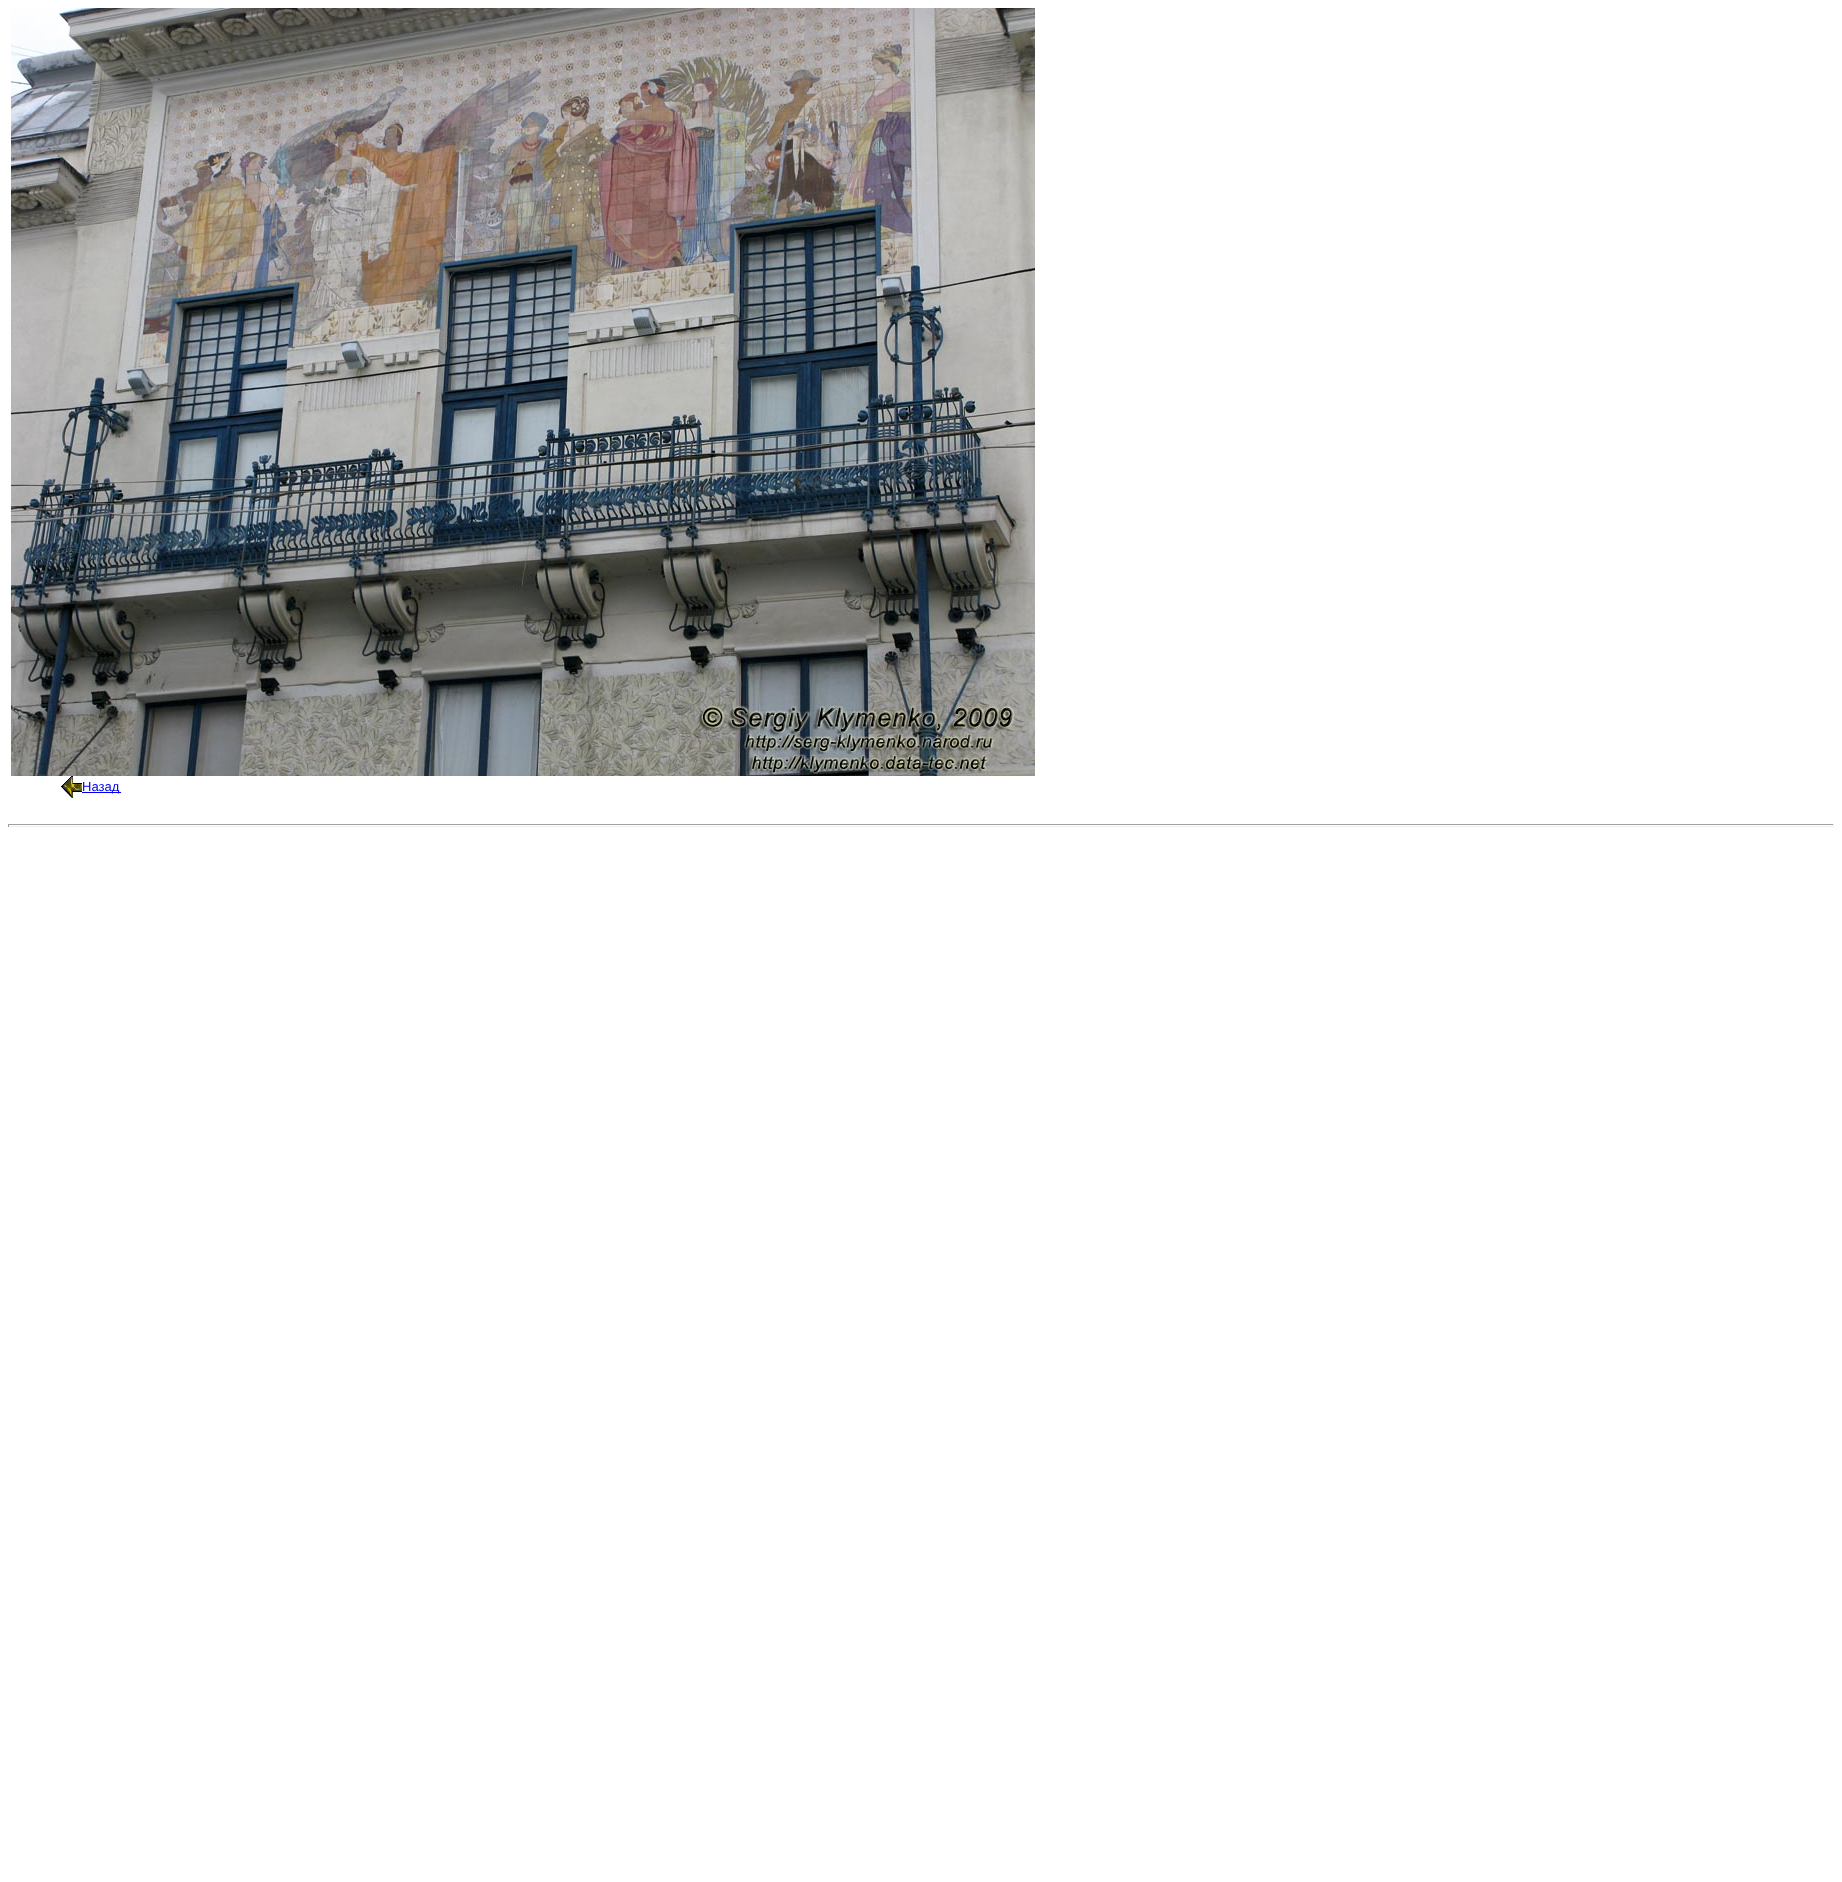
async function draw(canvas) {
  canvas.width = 1842
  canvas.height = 1882
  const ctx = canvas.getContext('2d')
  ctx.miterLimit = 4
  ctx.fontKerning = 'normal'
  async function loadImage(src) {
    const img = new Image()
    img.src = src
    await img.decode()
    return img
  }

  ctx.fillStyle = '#fff'
  ctx.fillRect(0, 0, 1842, 1882)
  ctx.drawImage(await loadImage('image0.png'), 11, 8, 1024, 768)
  ctx.drawImage(await loadImage('image1.png'), 61, 776, 21, 22)
  ctx.fillStyle = '#00e'
  ctx.fillRect(82, 792, 39, 1)
  ctx.font = '13px Liberation Sans'
  ctx.fillText('Назад', 82, 791)
  ctx.fillStyle = '#9f9f9f'
  ctx.fillRect(8, 824, 1826, 1)
  ctx.fillStyle = '#eee'
  ctx.fillRect(1833, 824, 1, 3)
  ctx.fillRect(8, 826, 1826, 1)
  ctx.fillStyle = '#9f9f9f'
  ctx.fillRect(8, 824, 1, 3)
}

draw(document.querySelector('canvas'))
